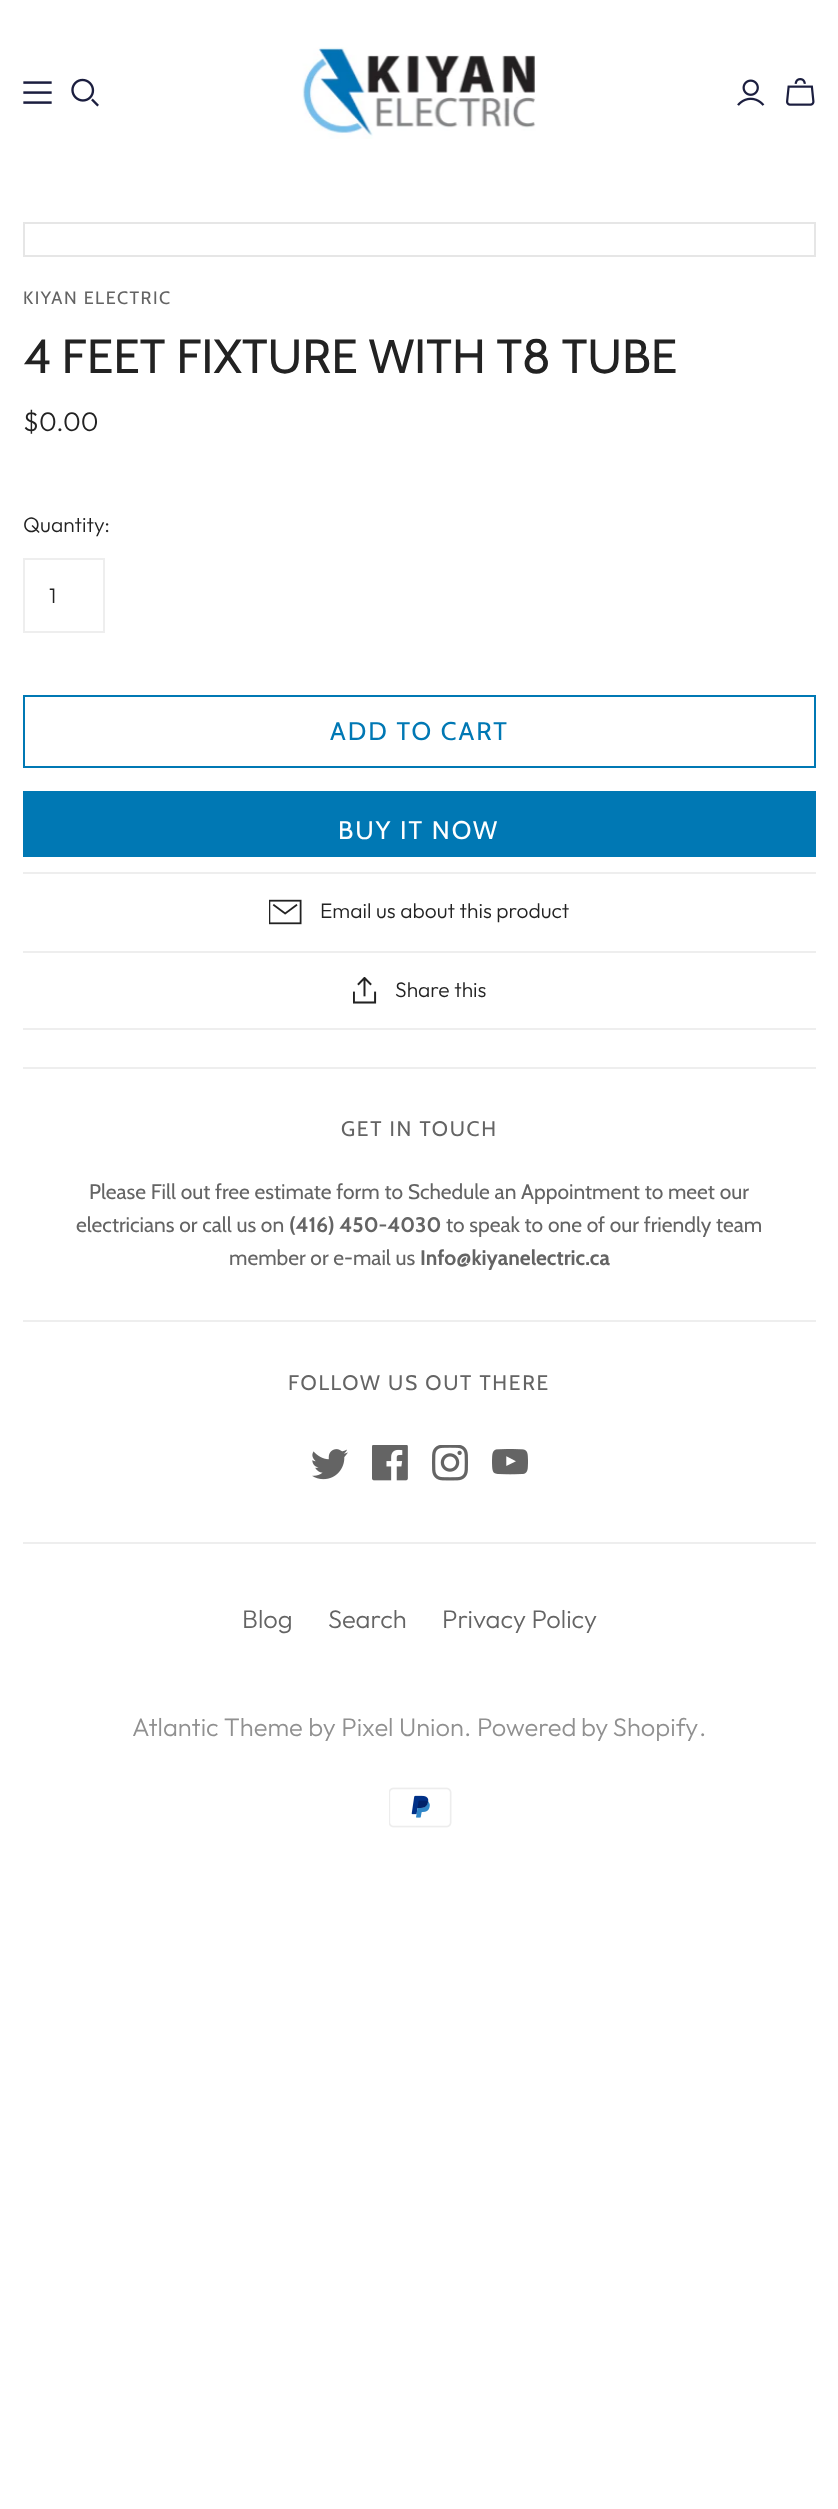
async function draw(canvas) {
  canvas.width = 838
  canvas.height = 2509
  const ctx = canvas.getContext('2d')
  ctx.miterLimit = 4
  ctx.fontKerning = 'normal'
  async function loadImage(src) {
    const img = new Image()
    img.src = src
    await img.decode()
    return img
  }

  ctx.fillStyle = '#fff'
  ctx.fillRect(0, 0, 838, 2509)
  ctx.drawImage(await loadImage('image0.png'), 302, 47, 234, 92)
  ctx.drawImage(await loadImage('image1.png'), 23, 81, 29, 23)
  ctx.drawImage(await loadImage('image2.png'), 71, 78, 28, 29)
  ctx.drawImage(await loadImage('image3.png'), 737, 79, 28, 27)
  ctx.drawImage(await loadImage('image4.png'), 786, 78, 29, 28)
  ctx.strokeStyle = '#e6e6e6'
  ctx.lineWidth = 2
  ctx.strokeRect(24, 223, 791, 33)
  ctx.letterSpacing = '1.5px'
  ctx.font = '18px Cabin'
  ctx.fillStyle = '#646464'
  ctx.fillText('KIYAN ELECTRIC', 23, 304)
  ctx.letterSpacing = '0px'
  ctx.font = '48px Cabin'
  ctx.fillStyle = '#222'
  ctx.fillText('4 FEET FIXTURE WITH T8 TUBE', 23, 373)
  ctx.font = '300 27px Outfit'
  ctx.fillText('$0.00', 23, 431)
  ctx.font = '300 21px Outfit'
  ctx.fillText('Quantity:', 23, 532)
  ctx.strokeStyle = '#eee'
  ctx.strokeRect(24, 559, 80, 73)
  ctx.fillText('1', 49, 603)
  ctx.strokeStyle = '#0078b4'
  ctx.strokeRect(24, 696, 791, 71)
  ctx.letterSpacing = '2px'
  ctx.font = '25.5px Cabin'
  ctx.fillStyle = '#0078b4'
  ctx.fillText('ADD TO CART', 330, 740)
  ctx.fillRect(23, 791, 793, 66)
  ctx.fillStyle = '#fff'
  ctx.fillText('BUY IT NOW', 338, 839)
  ctx.fillStyle = '#eee'
  ctx.fillRect(23, 872, 793, 2)
  ctx.fillRect(23, 1028, 793, 2)
  ctx.drawImage(await loadImage('image5.png'), 269, 899, 33, 26)
  ctx.letterSpacing = '0px'
  ctx.font = '300 21px Outfit'
  ctx.fillStyle = '#222'
  ctx.fillText('Email us about this product', 320, 918)
  ctx.fillStyle = '#eee'
  ctx.fillRect(23, 951, 793, 2)
  ctx.drawImage(await loadImage('image6.png'), 353, 977, 24, 27)
  ctx.fillStyle = '#222'
  ctx.fillText('Share this', 395, 997)
  ctx.fillStyle = '#eee'
  ctx.fillRect(23, 1067, 793, 2)
  ctx.fillRect(23, 1542, 793, 2)
  ctx.letterSpacing = '1.7px'
  ctx.font = '21px Cabin'
  ctx.fillStyle = '#646464'
  ctx.fillText('GET IN TOUCH', 341, 1136)
  ctx.letterSpacing = '0px'
  ctx.fillText('Please Fill out free estimate form to Schedule an Appointment to meet our', 89, 1199)
  ctx.fillText('electricians or call us on', 76, 1232)
  ctx.font = 'bold 21px Cabin'
  ctx.fillText('(416) 450-4030', 289, 1232)
  ctx.font = '21px Cabin'
  ctx.fillText('to speak to one of our friendly team', 446, 1232)
  ctx.fillText('member or e-mail us', 229, 1265)
  ctx.font = 'bold 21px Cabin'
  ctx.fillText('Info@kiyanelectric.ca', 420, 1265)
  ctx.fillStyle = '#eee'
  ctx.fillRect(23, 1320, 793, 2)
  ctx.letterSpacing = '1.7px'
  ctx.font = '21px Cabin'
  ctx.fillStyle = '#646464'
  ctx.fillText('FOLLOW US OUT THERE', 288, 1390)
  ctx.drawImage(await loadImage('image7.png'), 312, 1449, 36, 31)
  ctx.drawImage(await loadImage('image8.png'), 372, 1445, 36, 36)
  ctx.drawImage(await loadImage('image9.png'), 432, 1445, 36, 36)
  ctx.drawImage(await loadImage('image10.png'), 492, 1449, 36, 26)
  ctx.letterSpacing = '0px'
  ctx.font = '300 25.5px Outfit'
  ctx.fillText('Blog', 242, 1628)
  ctx.fillText('Search', 328, 1628)
  ctx.fillText('Privacy Policy', 442, 1628)
  ctx.fillStyle = '#909090'
  ctx.fillText('Atlantic Theme by Pixel Union.', 132, 1736)
  ctx.wordSpacing = '-1px'
  ctx.fillText('Powered by Shopify', 477, 1736)
  ctx.wordSpacing = '0px'
  ctx.fillText('.', 699, 1736)
  ctx.drawImage(await loadImage('image11.png'), 389, 1787, 63, 41)
}

draw(document.querySelector('canvas'))
